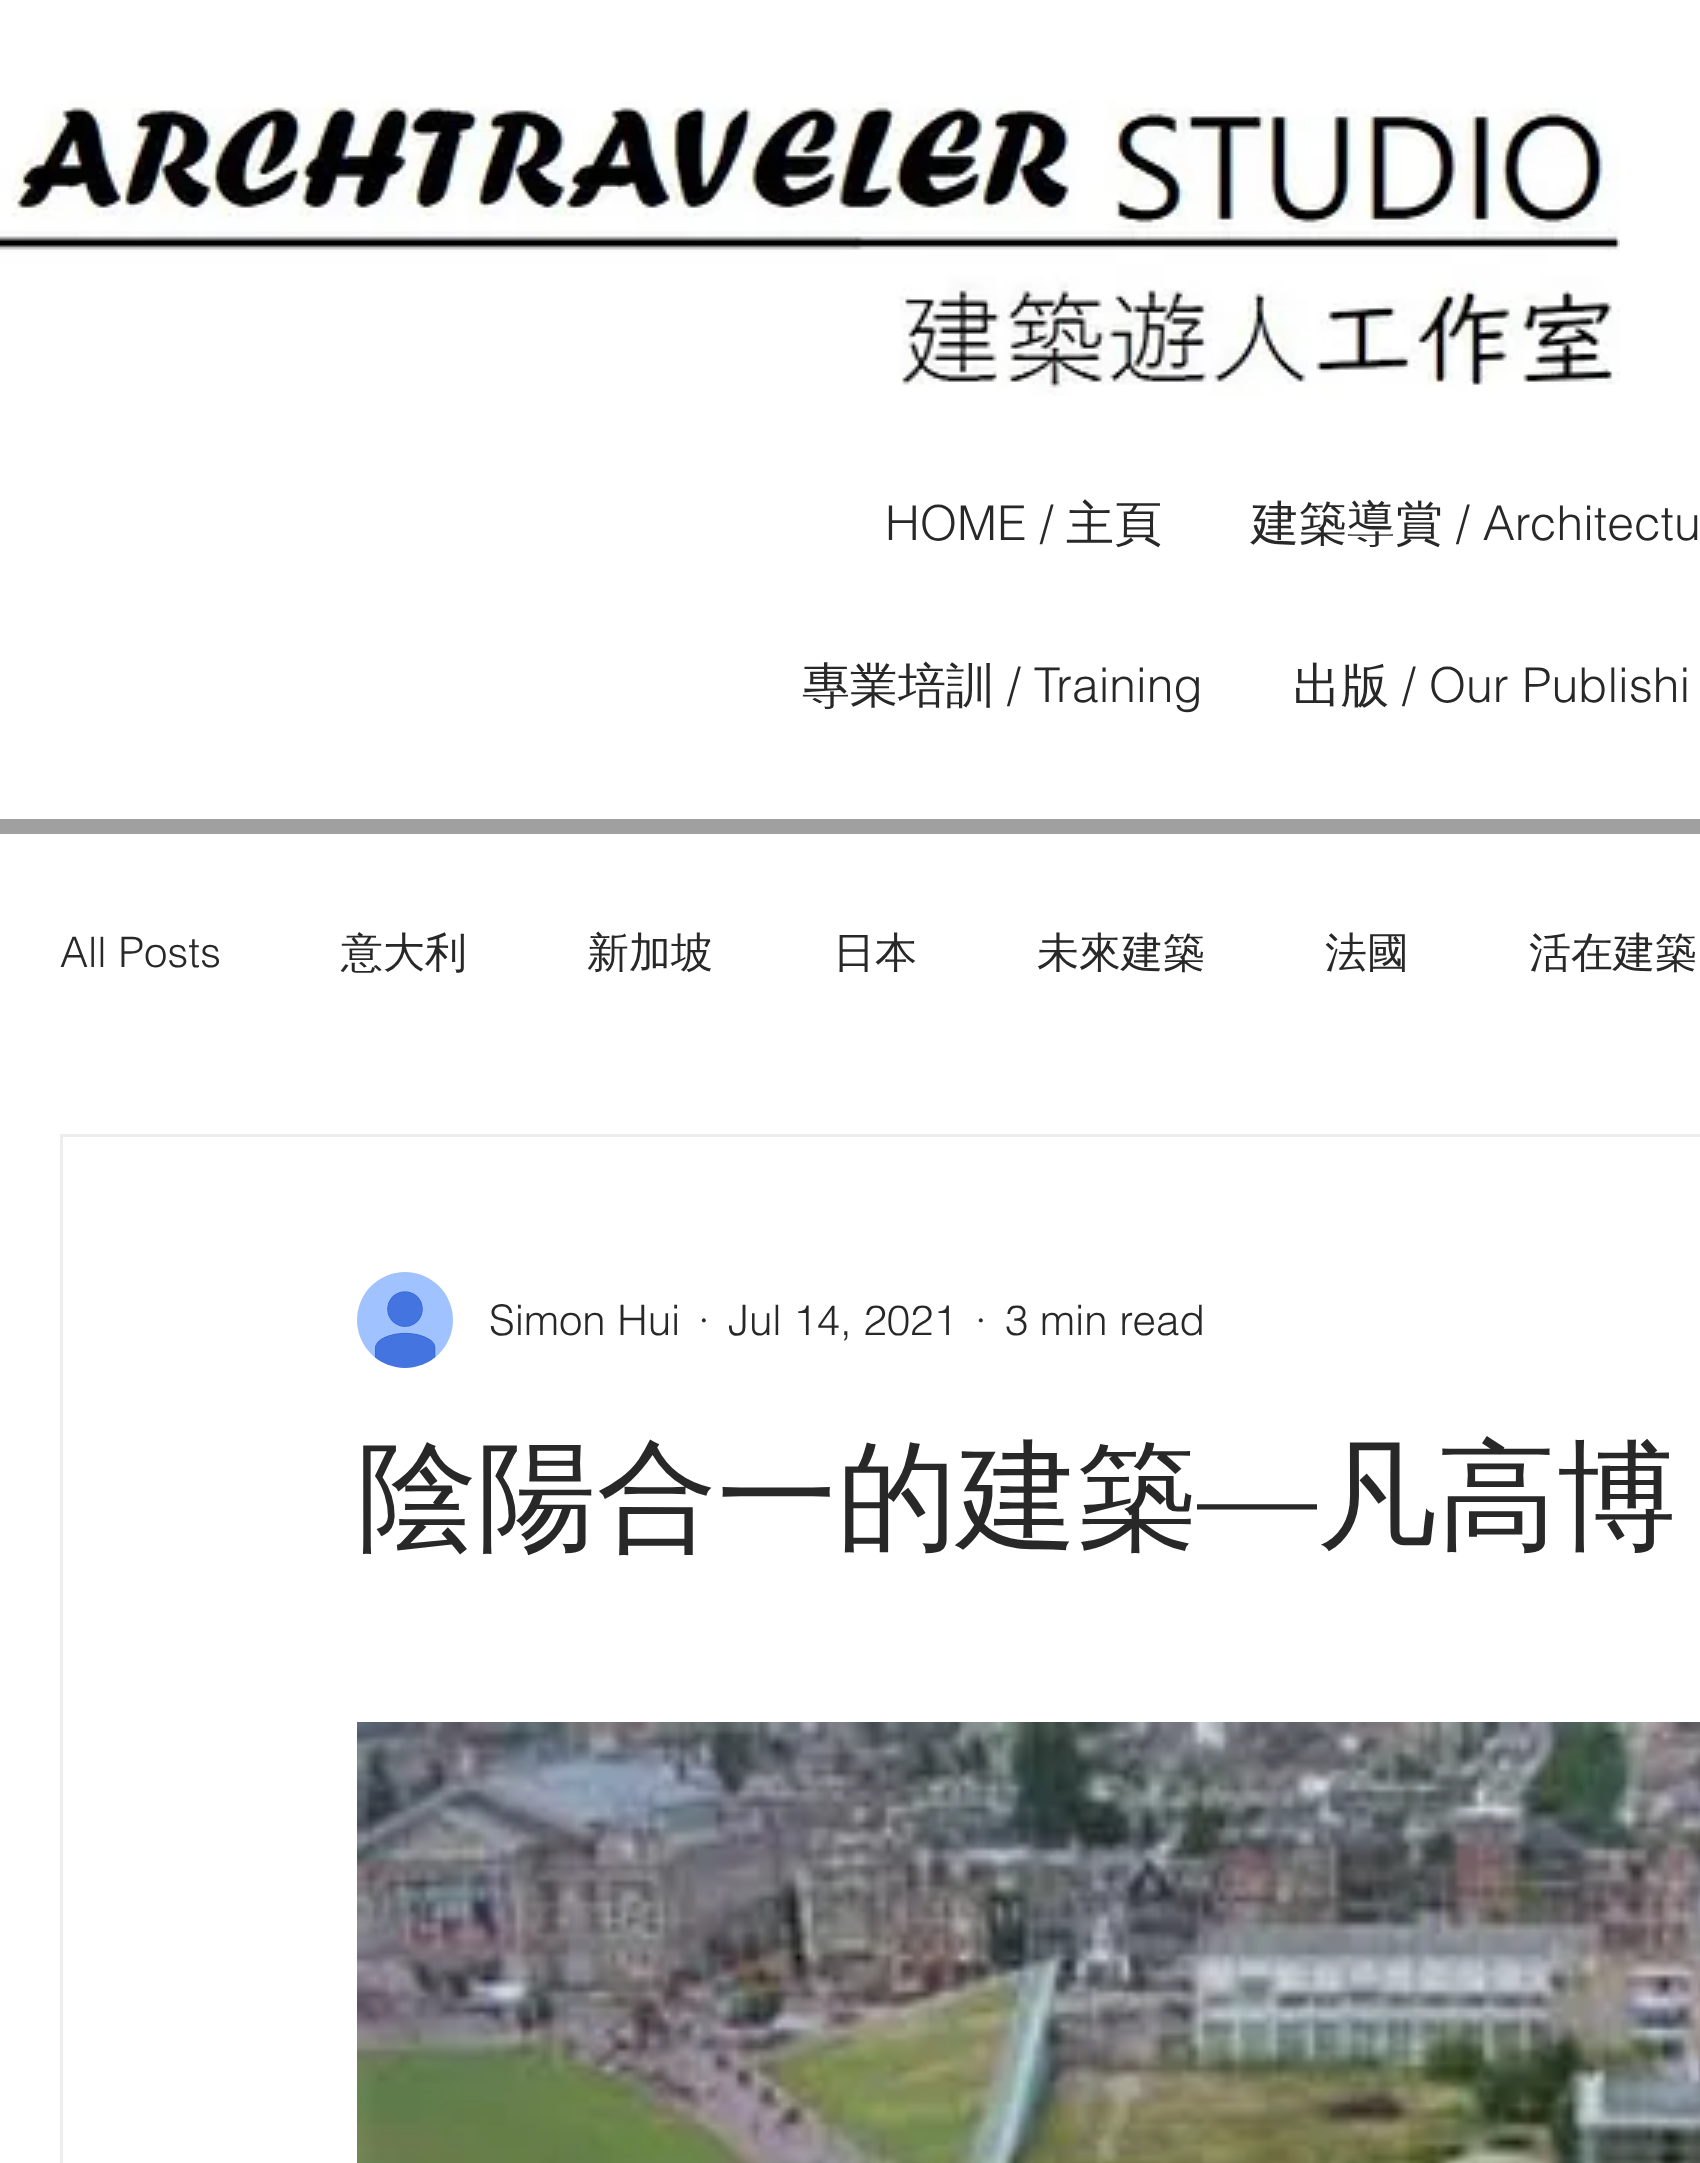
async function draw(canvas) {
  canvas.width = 1700
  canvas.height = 2163
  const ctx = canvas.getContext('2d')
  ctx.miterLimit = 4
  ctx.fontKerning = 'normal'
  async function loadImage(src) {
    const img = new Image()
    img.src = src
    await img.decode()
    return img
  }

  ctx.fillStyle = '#fff'
  ctx.fillRect(0, 0, 1700, 2163)
  ctx.drawImage(await loadImage('image0.png'), 0, 99, 1620, 297)
  ctx.font = '300 48px helvetica'
  ctx.fillStyle = '#282828'
  ctx.fillText('HOME /', 885, 540)
  ctx.font = '500 48px WenQuanYi Zen Hei'
  ctx.fillText('主頁', 1066, 540)
  ctx.fillText('建築導賞', 1251, 540)
  ctx.font = '300 48px helvetica'
  ctx.fillText('/ Architectu', 1456, 540)
  ctx.font = '500 48px WenQuanYi Zen Hei'
  ctx.fillText('專業培訓', 802, 702)
  ctx.font = '300 48px helvetica'
  ctx.fillText('/ Training', 1007, 702)
  ctx.font = '500 48px WenQuanYi Zen Hei'
  ctx.fillText('出版', 1293, 702)
  ctx.font = '300 48px helvetica'
  ctx.fillText('/ Our Publishi', 1402, 702)
  ctx.fillStyle = '#a0a0a0'
  ctx.fillRect(0, 819, 1700, 15)
  ctx.font = '300 42px helvetica'
  ctx.fillStyle = '#282828'
  ctx.fillText('All Posts', 60, 967)
  ctx.font = '500 42px WenQuanYi Zen Hei'
  ctx.fillText('意大利', 341, 967)
  ctx.fillText('新加坡', 587, 967)
  ctx.fillText('日本', 833, 967)
  ctx.fillText('未來建築', 1037, 967)
  ctx.fillText('法國', 1325, 967)
  ctx.fillText('活在建築', 1529, 967)
  ctx.strokeStyle = '#eeecec'
  ctx.lineWidth = 3
  ctx.strokeRect(61.5, 1135.5, 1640, 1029)
  ctx.drawImage(await loadImage('image1.png'), 357, 1272, 96, 96)
  ctx.font = '300 42px helvetica'
  ctx.fillText('Simon Hui', 489, 1335)
  ctx.fillText('·', 698, 1335)
  ctx.fillText('Jul 14, 2021', 728, 1335)
  ctx.fillText('·', 975, 1335)
  ctx.fillText('3 min read', 1005, 1335)
  ctx.font = '500 120px WenQuanYi Zen Hei'
  ctx.fillText('陰陽合一的建築', 357, 1538)
  ctx.font = '300 120px helvetica'
  ctx.fillText('—', 1197, 1538)
  ctx.font = '500 120px WenQuanYi Zen Hei'
  ctx.fillText('凡高博', 1317, 1538)
  ctx.drawImage(await loadImage('image2.png'), 357, 1722, 1343, 441)
}

draw(document.querySelector('canvas'))
